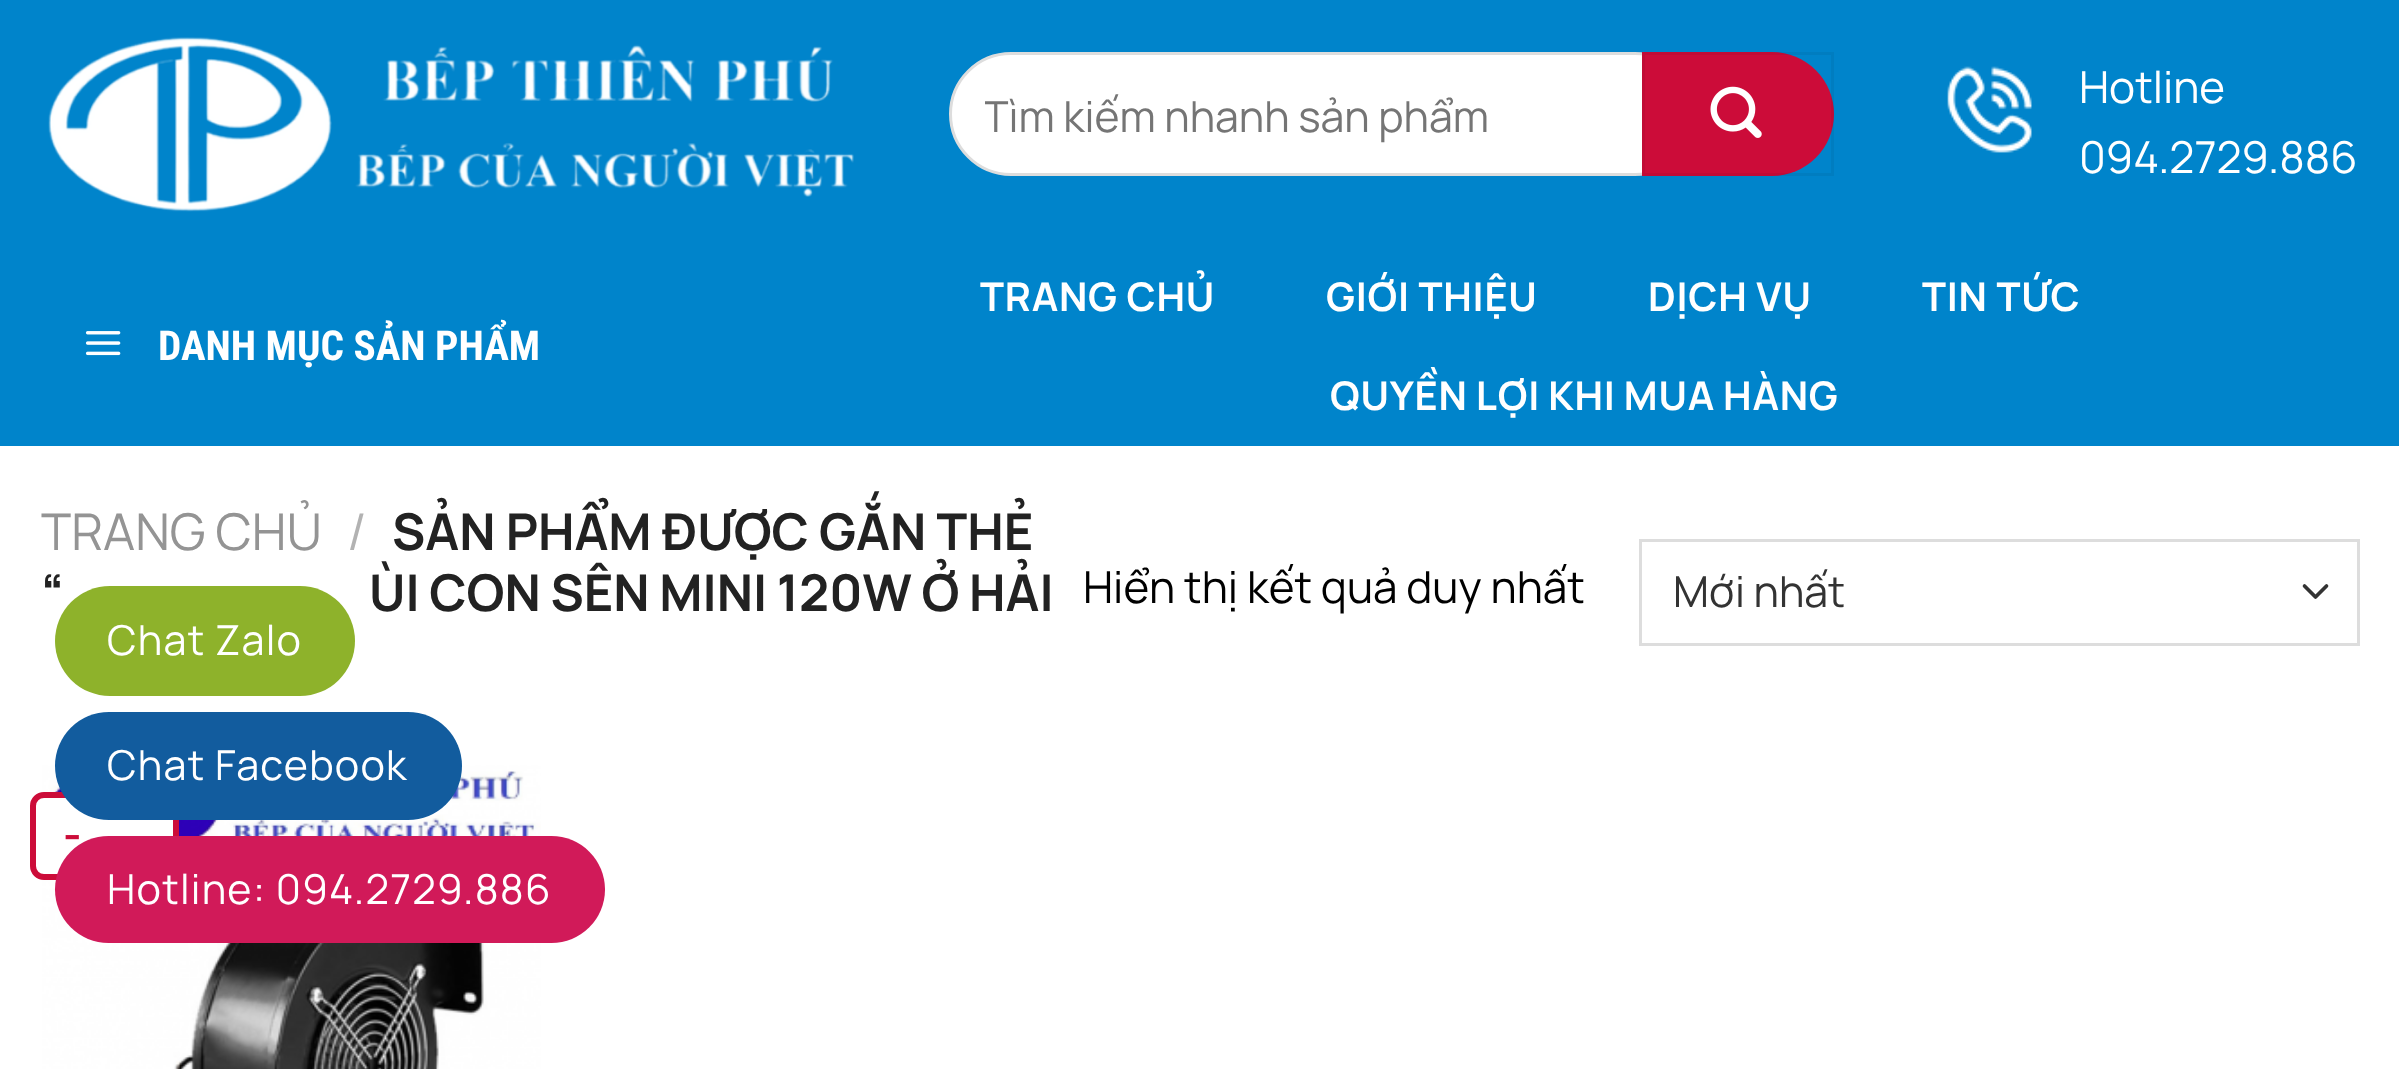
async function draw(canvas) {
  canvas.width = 2399
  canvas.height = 1069
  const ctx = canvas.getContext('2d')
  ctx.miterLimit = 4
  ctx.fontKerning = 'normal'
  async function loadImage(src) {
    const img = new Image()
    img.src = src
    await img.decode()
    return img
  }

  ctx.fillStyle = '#fff'
  ctx.fillRect(0, 0, 2399, 1069)
  ctx.fillStyle = '#0084cb'
  ctx.fillRect(0, 0, 2399, 446)
  ctx.drawImage(await loadImage('image0.png'), 48, 37, 806, 175)
  ctx.fillStyle = '#fff'
  ctx.beginPath()
  ctx.roundRect(950.5, 53.5, 745, 121, 60.5)
  ctx.fill()
  ctx.strokeStyle = '#ddd'
  ctx.lineWidth = 3
  ctx.stroke()
  ctx.save()
  ctx.beginPath()
  ctx.rect(985, 85, 665, 61)
  ctx.clip()
  ctx.font = '42.75px Manrope'
  ctx.fillStyle = '#757575'
  ctx.fillText('Tìm kiếm nhanh sản phẩm', 983, 132)
  ctx.restore()
  ctx.fillStyle = '#cc0c39'
  ctx.beginPath()
  ctx.roundRect(1642, 52, 192, 124, [0, 62, 62, 0])
  ctx.fill()
  ctx.strokeStyle = '#0000000d'
  ctx.strokeRect(1643.5, 53.5, 189, 121)
  ctx.drawImage(await loadImage('image1.png'), 1710, 86, 52, 52)
  ctx.drawImage(await loadImage('image2.png'), 1947, 66, 85, 87)
  ctx.font = '44px Manrope'
  ctx.fillStyle = '#fff'
  ctx.fillText('Hotline', 2079, 103)
  ctx.fillText('094.2729.886', 2079, 173)
  ctx.drawImage(await loadImage('image3.png'), 85, 331, 36, 25)
  ctx.font = 'bold 41.25px Roboto Condensed'
  ctx.fillText('DANH MỤC SẢN PHẨM', 158, 360)
  ctx.letterSpacing = '0.75px'
  ctx.font = 'bold 39.6px Manrope'
  ctx.fillText('TRANG CHỦ', 980, 311)
  ctx.fillText('GIỚI THIỆU', 1326, 311)
  ctx.fillText('DỊCH VỤ', 1648, 311)
  ctx.fillText('TIN TỨC', 1922, 311)
  ctx.wordSpacing = '-0.5px'
  ctx.fillText('QUYỀN LỢI KHI MUA HÀNG', 1330, 410)
  ctx.letterSpacing = '0px'
  ctx.wordSpacing = '0px'
  ctx.font = '50.6px Manrope'
  ctx.fillStyle = '#949494'
  ctx.fillText('TRANG CHỦ', 41, 550)
  ctx.fillStyle = '#b2b2b2'
  ctx.fillText('/', 347, 550)
  ctx.font = 'bold 50.6px Manrope'
  ctx.fillStyle = '#222'
  ctx.fillText('SẢN PHẨM ĐƯỢC GẮN THẺ', 392, 550)
  ctx.wordSpacing = '-0.5px'
  ctx.fillText('“', 41, 611)
  ctx.fillText('ÙI CON SÊN MINI 120W Ở HẢI', 369, 611)
  ctx.wordSpacing = '0px'
  ctx.font = '44px Manrope'
  ctx.fillStyle = '#000'
  ctx.fillText('Hiển thị kết quả duy nhất', 1083, 603)
  ctx.beginPath()
  ctx.moveTo(2304.5, 586)
  ctx.lineTo(2315.5, 597)
  ctx.lineTo(2326.5, 586)
  ctx.strokeStyle = '#333'
  ctx.lineWidth = 3.7
  ctx.lineCap = 'round'
  ctx.lineJoin = 'round'
  ctx.stroke()
  ctx.strokeStyle = '#ddd'
  ctx.lineWidth = 3
  ctx.lineJoin = 'miter'
  ctx.strokeRect(1640.5, 540.5, 718, 104)
  ctx.font = '42.75px Manrope'
  ctx.fillStyle = '#333'
  ctx.fillText('Mới nhất', 1673, 607)
  ctx.drawImage(await loadImage('image4.png'), 42, 765, 499, 304)
  ctx.fillStyle = '#fff'
  ctx.beginPath()
  ctx.roundRect(33, 795, 143, 82, 11)
  ctx.fill()
  ctx.strokeStyle = '#cc0c39'
  ctx.lineWidth = 6
  ctx.stroke()
  ctx.font = 'bold 44px Manrope'
  ctx.fillStyle = '#cc0c39'
  ctx.fillText('-', 63, 851)
  ctx.fillStyle = '#8eb22b'
  ctx.beginPath()
  ctx.roundRect(55, 586, 300, 110, 55)
  ctx.fill()
  ctx.letterSpacing = '1.25px'
  ctx.font = '41.25px Manrope'
  ctx.fillStyle = '#fff'
  ctx.fillText('Chat Zalo', 107, 655)
  ctx.fillStyle = '#125c9e'
  ctx.beginPath()
  ctx.roundRect(55, 712, 407, 108, 54)
  ctx.fill()
  ctx.fillStyle = '#fff'
  ctx.fillText('Chat Facebook', 107, 780)
  ctx.fillStyle = '#d11a59'
  ctx.beginPath()
  ctx.roundRect(55, 836, 550, 107, 53.5)
  ctx.fill()
  ctx.fillStyle = '#fff'
  ctx.fillText('Hotline: 094.2729.886', 107, 904)
}

draw(document.querySelector('canvas'))
